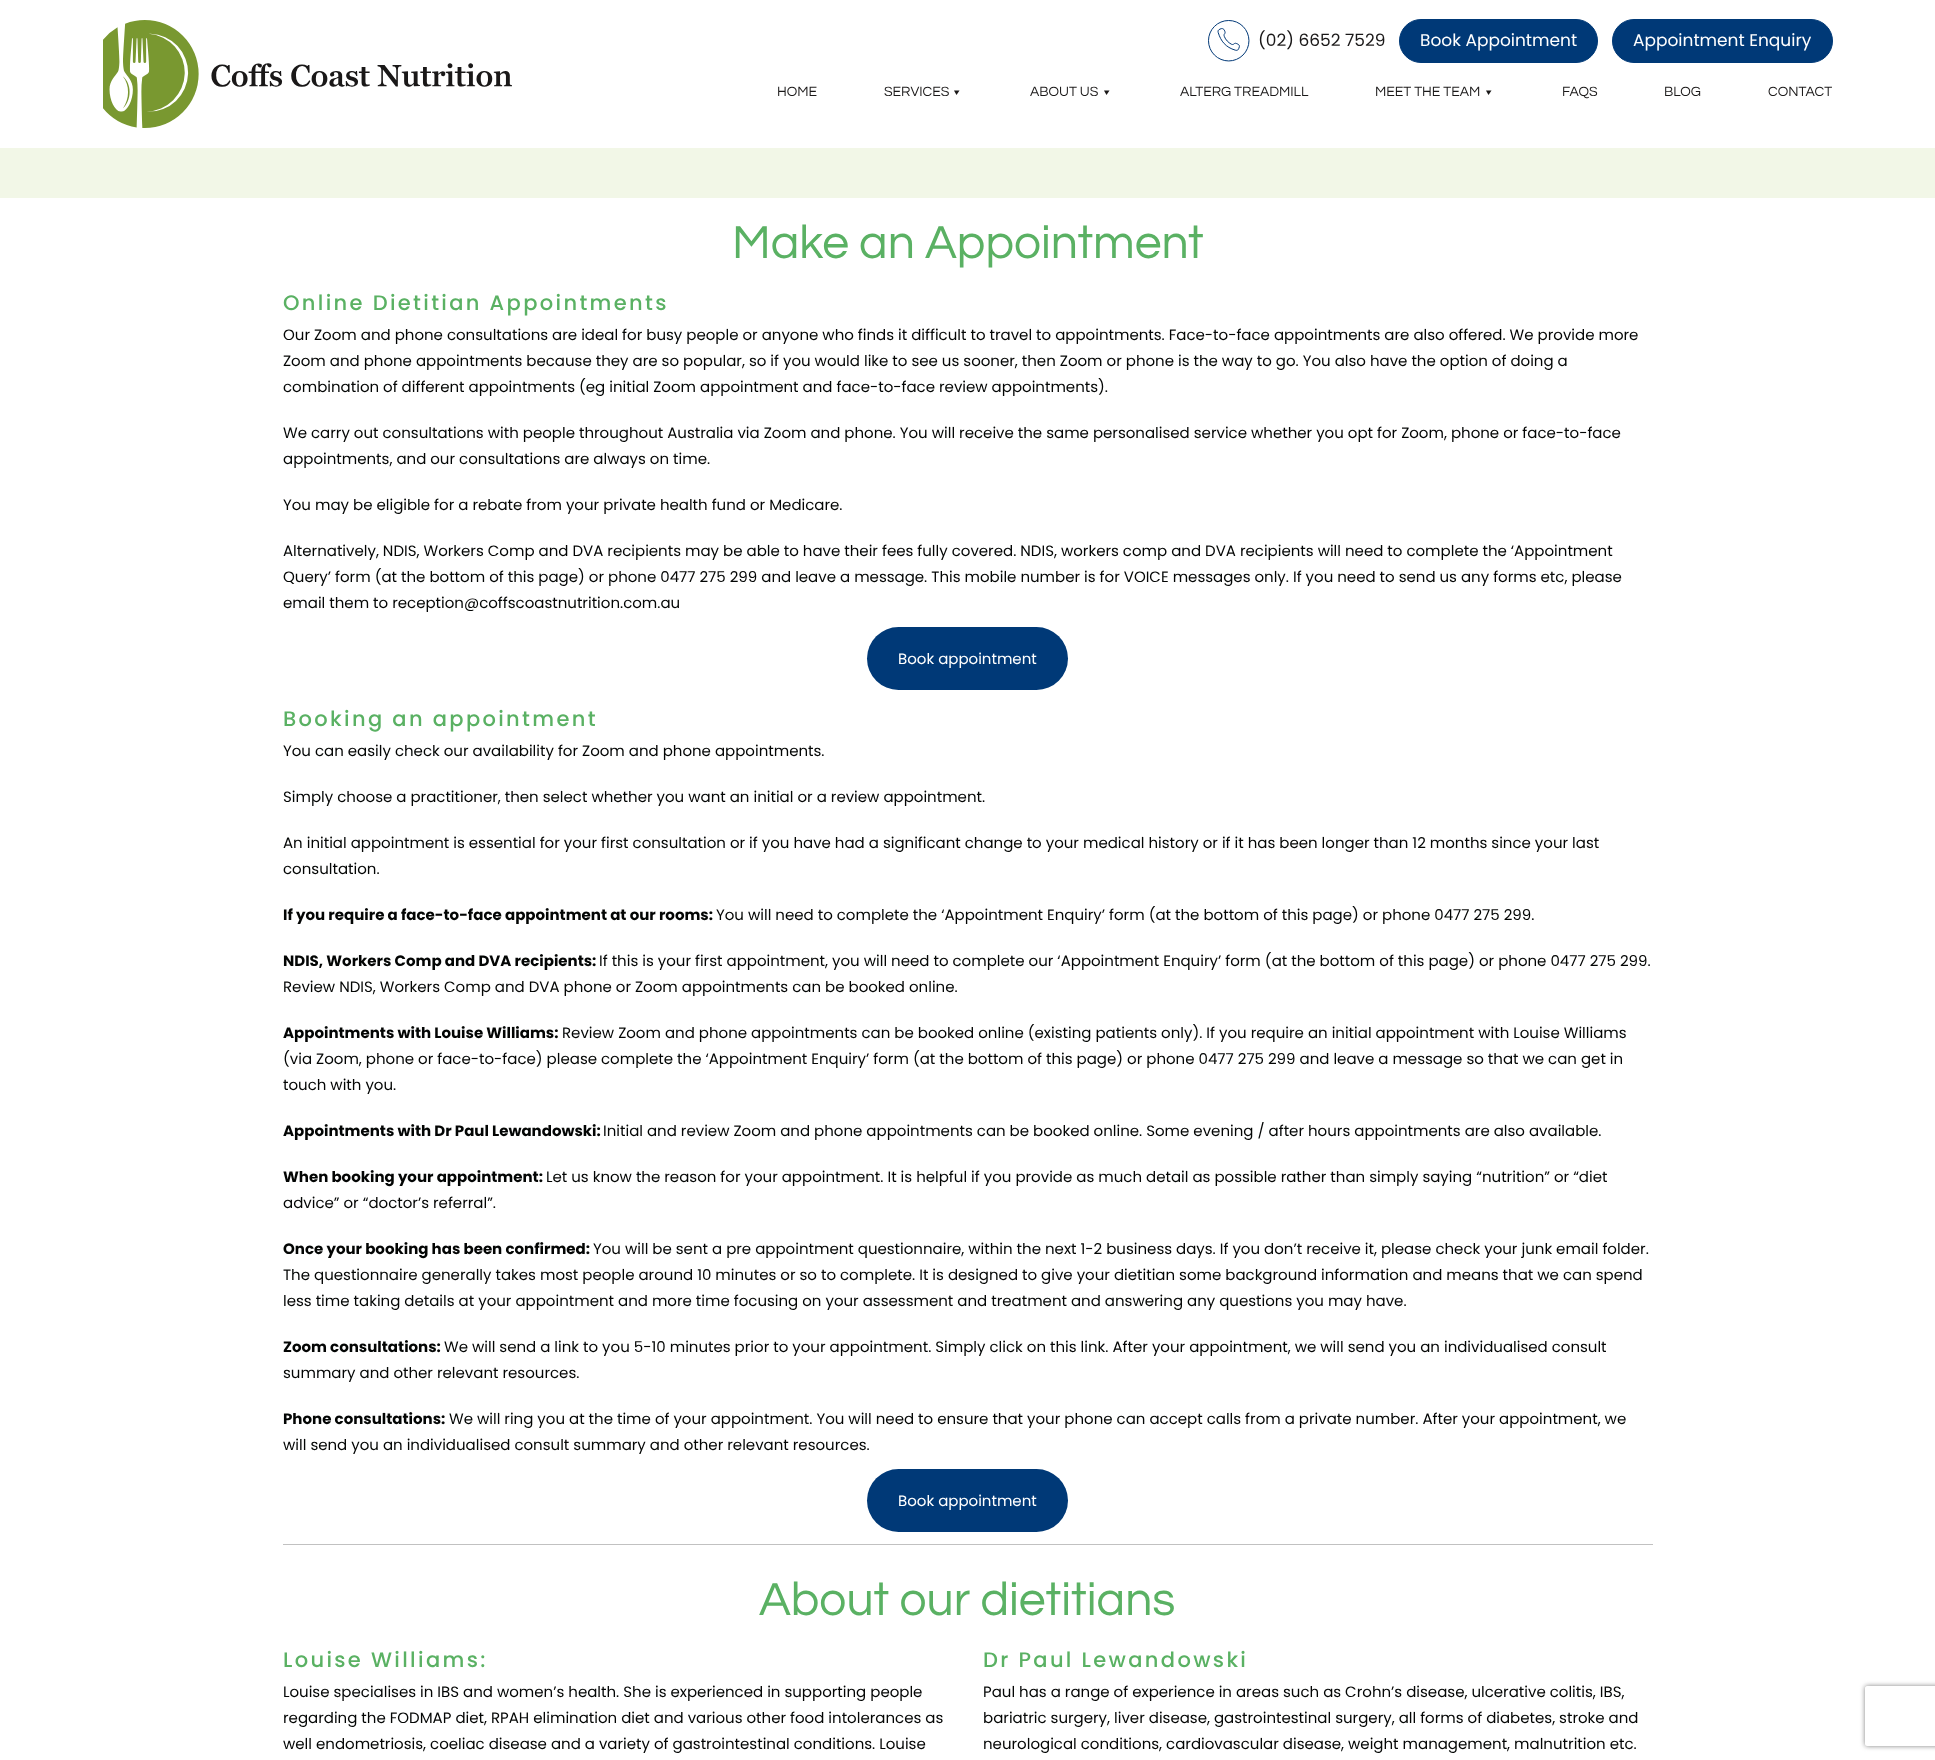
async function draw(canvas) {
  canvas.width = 1935
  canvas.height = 1760
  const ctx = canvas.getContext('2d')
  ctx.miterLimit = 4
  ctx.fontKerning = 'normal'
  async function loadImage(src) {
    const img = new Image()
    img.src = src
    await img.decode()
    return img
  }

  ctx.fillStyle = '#fff'
  ctx.fillRect(0, 0, 1935, 1760)
  ctx.drawImage(await loadImage('image0.png'), 103, 20, 409, 108)
  ctx.drawImage(await loadImage('image1.png'), 1208, 20, 42, 42)
  ctx.font = '17px Poppins'
  ctx.fillStyle = '#1a1818'
  ctx.fillText('(02) 6652 7529', 1258, 46)
  ctx.fillStyle = '#003977'
  ctx.beginPath()
  ctx.roundRect(1399.5, 19.5, 198, 43, 21.5)
  ctx.fill()
  ctx.strokeStyle = '#003977'
  ctx.stroke()
  ctx.fillStyle = '#fff'
  ctx.fillText('Book Appointment', 1420, 46)
  ctx.fillStyle = '#003977'
  ctx.beginPath()
  ctx.roundRect(1612.5, 19.5, 220, 43, 21.5)
  ctx.fill()
  ctx.stroke()
  ctx.fillStyle = '#fff'
  ctx.fillText('Appointment Enquiry', 1633, 46)
  ctx.font = '14px Questrial'
  ctx.fillStyle = '#1a1818'
  ctx.fillText('HOME', 777, 96)
  ctx.fillText('SERVICES', 884, 96)
  ctx.beginPath()
  ctx.moveTo(959.5, 90.5)
  ctx.lineTo(956.5, 95)
  ctx.lineTo(954, 90.5)
  ctx.closePath()
  ctx.fill()
  ctx.fillText('ABOUT US', 1030, 96)
  ctx.beginPath()
  ctx.moveTo(1109.5, 90.5)
  ctx.lineTo(1106.5, 95)
  ctx.lineTo(1104, 90.5)
  ctx.closePath()
  ctx.fill()
  ctx.fillText('ALTERG TREADMILL', 1180, 96)
  ctx.fillText('MEET THE TEAM', 1375, 96)
  ctx.beginPath()
  ctx.moveTo(1491.5, 90.5)
  ctx.lineTo(1488.5, 95)
  ctx.lineTo(1486, 90.5)
  ctx.closePath()
  ctx.fill()
  ctx.fillText('FAQS', 1562, 96)
  ctx.fillText('BLOG', 1664, 96)
  ctx.fillText('CONTACT', 1768, 96)
  ctx.fillStyle = '#f2f7e7'
  ctx.fillRect(0, 148, 1935, 50)
  ctx.font = '48px Questrial'
  ctx.fillStyle = '#5ab163'
  ctx.fillText('Make an Appointment', 732, 258)
  ctx.letterSpacing = '2.35px'
  ctx.font = '500 21px Poppins'
  ctx.fillText('Online Dietitian Appointments', 283, 310)
  ctx.letterSpacing = '0px'
  ctx.font = '15px Poppins'
  ctx.fillStyle = '#030504'
  ctx.fillText('Our Zoom and phone consultations are ideal for busy people or anyone who finds it difficult to travel to appointments. Face-to-face appointments are also offered. We provide more', 283, 340)
  ctx.fillText('Zoom and phone appointments because they are so popular, so if you would like to see us sooner, then Zoom or phone is the way to go. You also have the option of doing a', 283, 366)
  ctx.fillText('combination of different appointments (eg initial Zoom appointment and face-to-face review appointments).', 283, 392)
  ctx.fillText('We carry out consultations with people throughout Australia via Zoom and phone. You will receive the same personalised service whether you opt for Zoom, phone or face-to-face', 283, 438)
  ctx.fillText('appointments, and our consultations are always on time.', 283, 464)
  ctx.fillText('You may be eligible for a rebate from your private health fund or Medicare.', 283, 510)
  ctx.fillText('Alternatively, NDIS, Workers Comp and DVA recipients may be able to have their fees fully covered. NDIS, workers comp and DVA recipients will need to complete the ‘Appointment', 283, 556)
  ctx.fillText('Query’ form (at the bottom of this page) or phone 0477 275 299 and leave a message. This mobile number is for VOICE messages only. If you need to send us any forms etc, please', 283, 582)
  ctx.fillText('email them to reception@coffscoastnutrition.com.au', 283, 608)
  ctx.fillStyle = '#003977'
  ctx.beginPath()
  ctx.roundRect(867, 627, 201, 63, 31.5)
  ctx.fill()
  ctx.fillStyle = '#fff'
  ctx.fillText('Book appointment', 898, 664)
  ctx.letterSpacing = '2.35px'
  ctx.font = '500 21px Poppins'
  ctx.fillStyle = '#5ab163'
  ctx.fillText('Booking an appointment', 283, 726)
  ctx.letterSpacing = '0px'
  ctx.font = '15px Poppins'
  ctx.fillStyle = '#030504'
  ctx.fillText('You can easily check our availability for Zoom and phone appointments.', 283, 756)
  ctx.fillText('Simply choose a practitioner, then select whether you want an initial or a review appointment.', 283, 802)
  ctx.fillText('An initial appointment is essential for your first consultation or if you have had a significant change to your medical history or if it has been longer than 12 months since your last', 283, 848)
  ctx.fillText('consultation.', 283, 874)
  ctx.font = 'bold 15px Poppins'
  ctx.fillText('If you require a face-to-face appointment at our rooms:', 283, 920)
  ctx.font = '15px Poppins'
  ctx.fillText('You will need to complete the ‘Appointment Enquiry’ form (at the bottom of this page) or phone 0477 275 299.', 716, 920)
  ctx.font = 'bold 15px Poppins'
  ctx.fillText('NDIS, Workers Comp and DVA recipients:', 283, 966)
  ctx.font = '15px Poppins'
  ctx.fillText('If this is your first appointment, you will need to complete our ‘Appointment Enquiry’ form (at the bottom of this page) or phone 0477 275 299.', 599, 966)
  ctx.fillText('Review NDIS, Workers Comp and DVA phone or Zoom appointments can be booked online.', 283, 992)
  ctx.font = 'bold 15px Poppins'
  ctx.fillText('Appointments with Louise Williams:', 283, 1038)
  ctx.font = '15px Poppins'
  ctx.fillText('Review Zoom and phone appointments can be booked online (existing patients only). If you require an initial appointment with Louise Williams', 562, 1038)
  ctx.fillText('(via Zoom, phone or face-to-face) please complete the ‘Appointment Enquiry’ form (at the bottom of this page) or phone 0477 275 299 and leave a message so that we can get in', 283, 1064)
  ctx.fillText('touch with you.', 283, 1090)
  ctx.font = 'bold 15px Poppins'
  ctx.fillText('Appointments with Dr Paul Lewandowski:', 283, 1136)
  ctx.font = '15px Poppins'
  ctx.fillText('Initial and review Zoom and phone appointments can be booked online. Some evening / after hours appointments are also available.', 603, 1136)
  ctx.font = 'bold 15px Poppins'
  ctx.fillText('When booking your appointment:', 283, 1182)
  ctx.font = '15px Poppins'
  ctx.fillText('Let us know the reason for your appointment. It is helpful if you provide as much detail as possible rather than simply saying “nutrition” or “diet', 546, 1182)
  ctx.fillText('advice” or “doctor’s referral”.', 283, 1208)
  ctx.font = 'bold 15px Poppins'
  ctx.fillText('Once your booking has been confirmed:', 283, 1254)
  ctx.font = '15px Poppins'
  ctx.fillText('You will be sent a pre appointment questionnaire, within the next 1-2 business days. If you don’t receive it, please check your junk email folder.', 593, 1254)
  ctx.fillText('The questionnaire generally takes most people around 10 minutes or so to complete. It is designed to give your dietitian some background information and means that we can spend', 283, 1280)
  ctx.fillText('less time taking details at your appointment and more time focusing on your assessment and treatment and answering any questions you may have.', 283, 1306)
  ctx.font = 'bold 15px Poppins'
  ctx.fillText('Zoom consultations:', 283, 1352)
  ctx.font = '15px Poppins'
  ctx.fillText('We will send a link to you 5-10 minutes prior to your appointment. Simply click on this link. After your appointment, we will send you an individualised consult', 444, 1352)
  ctx.fillText('summary and other relevant resources.', 283, 1378)
  ctx.font = 'bold 15px Poppins'
  ctx.fillText('Phone consultations:', 283, 1424)
  ctx.font = '15px Poppins'
  ctx.fillText('We will ring you at the time of your appointment. You will need to ensure that your phone can accept calls from a private number. After your appointment, we', 449, 1424)
  ctx.fillText('will send you an individualised consult summary and other relevant resources.', 283, 1450)
  ctx.fillStyle = '#003977'
  ctx.beginPath()
  ctx.roundRect(867, 1469, 201, 63, 31.5)
  ctx.fill()
  ctx.fillStyle = '#fff'
  ctx.fillText('Book appointment', 898, 1506)
  ctx.fillStyle = '#c1c1c1'
  ctx.fillRect(283, 1544, 1370, 1)
  ctx.font = '48px Questrial'
  ctx.fillStyle = '#5ab163'
  ctx.fillText('About our dietitians', 759, 1615)
  ctx.letterSpacing = '2.35px'
  ctx.font = '500 21px Poppins'
  ctx.fillText('Louise Williams:', 283, 1667)
  ctx.letterSpacing = '0px'
  ctx.font = '15px Poppins'
  ctx.fillStyle = '#030504'
  ctx.fillText('Louise specialises in IBS and women’s health. She is experienced in supporting people', 283, 1697)
  ctx.fillText('regarding the FODMAP diet, RPAH elimination diet and various other food intolerances as', 283, 1723)
  ctx.fillText('well endometriosis, coeliac disease and a variety of gastrointestinal conditions. Louise', 283, 1749)
  ctx.letterSpacing = '2.35px'
  ctx.font = '500 21px Poppins'
  ctx.fillStyle = '#5ab163'
  ctx.fillText('Dr Paul Lewandowski', 983, 1667)
  ctx.letterSpacing = '0px'
  ctx.font = '15px Poppins'
  ctx.fillStyle = '#030504'
  ctx.fillText('Paul has a range of experience in areas such as Crohn’s disease, ulcerative colitis, IBS,', 983, 1697)
  ctx.fillText('bariatric surgery, liver disease, gastrointestinal surgery, all forms of diabetes, stroke and', 983, 1723)
  ctx.fillText('neurological conditions, cardiovascular disease, weight management, malnutrition etc.', 983, 1749)
  ctx.save()
  ctx.beginPath()
  ctx.moveTo(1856, 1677)
  ctx.lineTo(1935, 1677)
  ctx.lineTo(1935, 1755)
  ctx.lineTo(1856, 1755)
  ctx.closePath()
  ctx.moveTo(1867, 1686)
  ctx.lineTo(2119, 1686)
  ctx.bezierCurveTo(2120, 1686, 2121, 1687, 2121, 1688)
  ctx.lineTo(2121, 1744)
  ctx.bezierCurveTo(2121, 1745, 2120, 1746, 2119, 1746)
  ctx.lineTo(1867, 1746)
  ctx.bezierCurveTo(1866, 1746, 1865, 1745, 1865, 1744)
  ctx.lineTo(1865, 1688)
  ctx.bezierCurveTo(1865, 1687, 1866, 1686, 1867, 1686)
  ctx.closePath()
  ctx.clip('evenodd')
  ctx.fillStyle = '#808080'
  ctx.filter = 'blur(2.5px)'
  ctx.beginPath()
  ctx.roundRect(1865, 1686, 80, 60, 2)
  ctx.fill()
  ctx.filter = 'none'
  ctx.restore()
}

draw(document.querySelector('canvas'))
